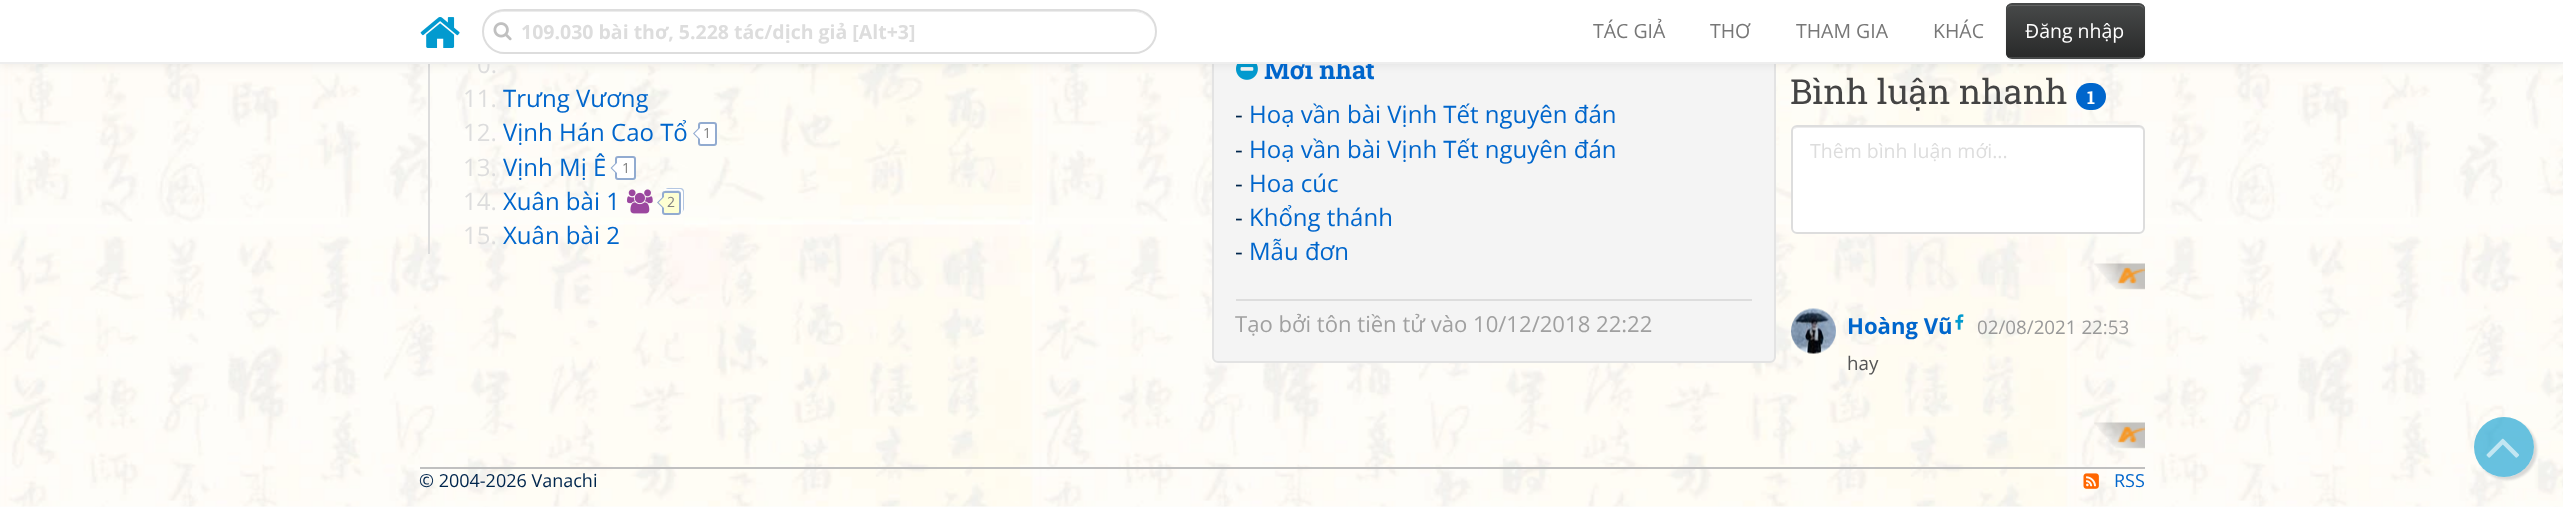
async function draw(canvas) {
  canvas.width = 2563
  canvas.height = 507
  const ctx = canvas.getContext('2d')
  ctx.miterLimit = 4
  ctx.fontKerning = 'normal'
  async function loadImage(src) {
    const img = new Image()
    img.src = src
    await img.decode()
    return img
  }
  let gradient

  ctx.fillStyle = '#fcfcfc'
  ctx.fillRect(0, 0, 2563, 507)
  ctx.drawImage(await loadImage('image0.png'), 0, 64, 2563, 443)
  ctx.fillStyle = '#ddd'
  ctx.fillRect(428, 64, 2, 190)
  ctx.fillStyle = '#f4f4f4'
  ctx.beginPath()
  ctx.roundRect(1213, -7, 562, 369, 5)
  ctx.fill()
  ctx.strokeStyle = '#e3e3e3'
  ctx.lineWidth = 2
  ctx.stroke()
  ctx.drawImage(await loadImage('image5.png'), 1236, 64, 22, 16)
  ctx.fillStyle = '#00000012'
  ctx.filter = 'blur(4px)'
  ctx.beginPath()
  ctx.rect(0, 2, 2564, 63)
  ctx.fill()
  ctx.filter = 'none'
  ctx.font = '24px Open Sans'
  ctx.fillStyle = '#ddd'
  ctx.fillText('0.', 477, 73)
  ctx.font = 'bold 25.5px Roboto Slab'
  ctx.fillStyle = '#06c'
  ctx.fillText('Mới nhất', 1264, 79)
  ctx.fillStyle = '#fff'
  ctx.fillRect(0, 0, 2563, 62)
  ctx.fillStyle = '#eee'
  ctx.fillRect(0, 62, 2563, 2)
  ctx.drawImage(await loadImage('image1.png'), 420, 17, 40, 31)
  ctx.fillStyle = '#ececec'
  ctx.beginPath()
  ctx.moveTo(504, 12)
  ctx.lineTo(1134, 12)
  ctx.bezierCurveTo(1146, 12, 1155, 21, 1155, 32)
  ctx.bezierCurveTo(1155, 21, 1146, 11, 1134, 11)
  ctx.lineTo(504, 11)
  ctx.bezierCurveTo(500, 11, 496, 12, 492, 15)
  ctx.bezierCurveTo(486, 19, 483, 25, 483, 32)
  ctx.bezierCurveTo(483, 21, 492, 12, 504, 12)
  ctx.closePath()
  ctx.fill()
  ctx.beginPath()
  ctx.roundRect(483, 10, 673, 43, 21.5)
  ctx.strokeStyle = '#ddd'
  ctx.stroke()
  ctx.drawImage(await loadImage('image2.png'), 493, 22, 19, 19)
  ctx.font = 'bold 19.5px Open Sans'
  ctx.fillStyle = '#ddd'
  ctx.fillText('109.030 bài thơ, 5.228 tác/dịch giả [Alt+3]', 521, 39)
  ctx.font = '19.5px Open Sans'
  ctx.fillStyle = '#777'
  ctx.fillText('TÁC GIẢ', 1593, 38)
  ctx.fillText('THƠ', 1710, 38)
  ctx.fillText('THAM GIA', 1796, 38)
  ctx.fillText('KHÁC', 1933, 38)
  ctx.fillStyle = '#00000012'
  ctx.filter = 'blur(1px)'
  ctx.beginPath()
  ctx.roundRect(2006, 5, 139, 55, 6)
  ctx.fill()
  ctx.filter = 'none'
  ctx.fillStyle = '#474949'
  ctx.beginPath()
  ctx.roundRect(2006, 3, 139, 56, 6)
  ctx.fill()
  ctx.save()
  ctx.beginPath()
  ctx.roundRect(2006, 3, 139, 56, 6)
  ctx.clip()
  gradient = ctx.createLinearGradient(2075, 4.5, 2075, 57)
  gradient.addColorStop(0, '#474949')
  gradient.addColorStop(1, '#292a2a')
  ctx.fillStyle = gradient
  ctx.fillRect(2006, 5, 139, 52)
  ctx.restore()
  ctx.fillStyle = '#626363'
  ctx.beginPath()
  ctx.moveTo(2012, 6)
  ctx.lineTo(2139, 6)
  ctx.bezierCurveTo(2141, 6, 2144, 8, 2144, 10)
  ctx.bezierCurveTo(2144, 7, 2142, 5, 2139, 5)
  ctx.lineTo(2012, 5)
  ctx.bezierCurveTo(2009, 5, 2007, 7, 2007, 10)
  ctx.bezierCurveTo(2007, 8, 2009, 6, 2012, 6)
  ctx.closePath()
  ctx.fill()
  ctx.fillStyle = '#fff'
  ctx.fillText('Đăng nhập', 2025, 38)
  ctx.save()
  ctx.beginPath()
  ctx.moveTo(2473, 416)
  ctx.lineTo(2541, 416)
  ctx.lineTo(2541, 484)
  ctx.lineTo(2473, 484)
  ctx.closePath()
  ctx.moveTo(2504, 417)
  ctx.bezierCurveTo(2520.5, 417, 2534, 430.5, 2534, 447)
  ctx.bezierCurveTo(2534, 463.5, 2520.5, 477, 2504, 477)
  ctx.bezierCurveTo(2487.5, 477, 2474, 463.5, 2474, 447)
  ctx.bezierCurveTo(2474, 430.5, 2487.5, 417, 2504, 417)
  ctx.closePath()
  ctx.clip('evenodd')
  ctx.fillStyle = '#c0c0c099'
  ctx.filter = 'blur(1px)'
  ctx.beginPath()
  ctx.roundRect(2477, 420, 60, 60, 30)
  ctx.fill()
  ctx.filter = 'none'
  ctx.restore()
  ctx.fillStyle = '#029acf99'
  ctx.beginPath()
  ctx.arc(2504, 447, 30, 0, 2 * Math.PI)
  ctx.fill()
  ctx.drawImage(await loadImage('image3.png'), 2486, 438, 33, 20)
  ctx.font = '24px Open Sans'
  ctx.fillStyle = '#ddd'
  ctx.fillText('11.', 463, 107)
  ctx.fillStyle = '#06c'
  ctx.fillText('Trưng Vương', 503, 107)
  ctx.fillStyle = '#ddd'
  ctx.fillText('12.', 463, 141)
  ctx.fillStyle = '#06c'
  ctx.fillText('Vịnh Hán Cao Tổ', 503, 141)
  ctx.fillStyle = '#fff'
  ctx.beginPath()
  ctx.roundRect(699, 123, 17, 22, 2)
  ctx.fill()
  ctx.strokeStyle = '#92abd0'
  ctx.stroke()
  ctx.fillStyle = '#92abd0'
  ctx.beginPath()
  ctx.moveTo(699, 127.5)
  ctx.lineTo(699, 139.5)
  ctx.lineTo(693, 133.5)
  ctx.closePath()
  ctx.fill()
  ctx.fillStyle = '#fff'
  ctx.beginPath()
  ctx.moveTo(700.5, 127.5)
  ctx.lineTo(700.5, 139.5)
  ctx.lineTo(694.5, 133.5)
  ctx.closePath()
  ctx.fill()
  ctx.font = '14px Open Sans'
  ctx.fillStyle = '#808080'
  ctx.fillText('1', 703, 138)
  ctx.font = '24px Open Sans'
  ctx.fillStyle = '#ddd'
  ctx.fillText('13.', 463, 176)
  ctx.fillStyle = '#06c'
  ctx.fillText('Vịnh Mị Ê', 503, 176)
  ctx.fillStyle = '#fff'
  ctx.beginPath()
  ctx.roundRect(616, 157, 19, 22, 2)
  ctx.fill()
  ctx.stroke()
  ctx.fillStyle = '#92abd0'
  ctx.beginPath()
  ctx.moveTo(616.5, 162)
  ctx.lineTo(616.5, 174)
  ctx.lineTo(610.5, 168)
  ctx.closePath()
  ctx.fill()
  ctx.fillStyle = '#fff'
  ctx.beginPath()
  ctx.moveTo(618, 162)
  ctx.lineTo(618, 174)
  ctx.lineTo(612, 168)
  ctx.closePath()
  ctx.fill()
  ctx.font = '14px Open Sans'
  ctx.fillStyle = '#808080'
  ctx.fillText('1', 622, 173)
  ctx.font = '24px Open Sans'
  ctx.fillStyle = '#ddd'
  ctx.fillText('14.', 463, 210)
  ctx.fillStyle = '#06c'
  ctx.fillText('Xuân bài 1', 503, 210)
  ctx.drawImage(await loadImage('image4.png'), 627, 189, 26, 25)
  ctx.fillStyle = '#b4c7e2'
  ctx.beginPath()
  ctx.moveTo(668, 188)
  ctx.bezierCurveTo(666.5, 188, 665.5, 189, 665, 190.5)
  ctx.lineTo(676, 190.5)
  ctx.bezierCurveTo(682.5, 190.5, 681, 193.5, 681, 199.5)
  ctx.lineTo(681, 212)
  ctx.bezierCurveTo(682.5, 212, 684, 210.5, 684, 209)
  ctx.lineTo(684, 191)
  ctx.bezierCurveTo(684, 189.5, 682.5, 188, 681, 188)
  ctx.closePath()
  ctx.fill()
  ctx.fillStyle = '#fff'
  ctx.beginPath()
  ctx.moveTo(666, 189)
  ctx.bezierCurveTo(665, 189, 663.5, 189.5, 663.5, 191)
  ctx.lineTo(664.5, 190.5)
  ctx.lineTo(678, 190.5)
  ctx.bezierCurveTo(679.5, 190.5, 681, 192, 681, 193.5)
  ctx.lineTo(681, 211.5)
  ctx.lineTo(680.5, 213)
  ctx.bezierCurveTo(682, 212.5, 683, 211.5, 683, 210)
  ctx.lineTo(683, 192)
  ctx.bezierCurveTo(683, 190.5, 681.5, 189, 680, 189)
  ctx.closePath()
  ctx.fill()
  ctx.fillStyle = '#feffd2'
  ctx.beginPath()
  ctx.roundRect(663, 192, 17, 22, 2)
  ctx.fill()
  ctx.stroke()
  ctx.fillStyle = '#92abd0'
  ctx.beginPath()
  ctx.moveTo(663, 196.5)
  ctx.lineTo(663, 208.5)
  ctx.lineTo(657, 202.5)
  ctx.closePath()
  ctx.fill()
  ctx.fillStyle = '#feffd2'
  ctx.beginPath()
  ctx.moveTo(664.5, 196.5)
  ctx.lineTo(664.5, 208.5)
  ctx.lineTo(658.5, 202.5)
  ctx.closePath()
  ctx.fill()
  ctx.font = '14px Open Sans'
  ctx.fillStyle = '#808080'
  ctx.fillText('2', 667, 207)
  ctx.font = '24px Open Sans'
  ctx.fillStyle = '#ddd'
  ctx.fillText('15.', 463, 244)
  ctx.fillStyle = '#06c'
  ctx.fillText('Xuân bài 2', 503, 244)
  ctx.fillStyle = '#00264d'
  ctx.fillText('-', 1235, 123)
  ctx.fillStyle = '#06c'
  ctx.fillText('Hoạ vần bài Vịnh Tết nguyên đán', 1249, 123)
  ctx.fillStyle = '#00264d'
  ctx.fillText('-', 1235, 158)
  ctx.fillStyle = '#06c'
  ctx.fillText('Hoạ vần bài Vịnh Tết nguyên đán', 1249, 158)
  ctx.fillStyle = '#00264d'
  ctx.fillText('-', 1235, 192)
  ctx.fillStyle = '#06c'
  ctx.fillText('Hoa cúc', 1249, 192)
  ctx.fillStyle = '#00264d'
  ctx.fillText('-', 1235, 226)
  ctx.fillStyle = '#06c'
  ctx.fillText('Khổng thánh', 1249, 226)
  ctx.fillStyle = '#00264d'
  ctx.fillText('-', 1235, 260)
  ctx.fillStyle = '#06c'
  ctx.fillText('Mẫu đơn', 1249, 260)
  ctx.fillStyle = '#ddd'
  ctx.fillRect(1236, 299, 516, 2)
  ctx.font = '22.1px Open Sans'
  ctx.fillStyle = '#a0a0a0'
  ctx.fillText('Tạo bởi tôn tiền tử vào 10/12/2018 22:22', 1235, 332)
  ctx.font = '34.5px Roboto Slab'
  ctx.fillStyle = '#444'
  ctx.fillText('Bình luận nhanh', 1790, 104)
  ctx.fillStyle = '#06c'
  ctx.beginPath()
  ctx.roundRect(2076, 83, 30, 27, 13.5)
  ctx.fill()
  ctx.font = 'bold 18px Roboto Slab'
  ctx.fillStyle = '#fff'
  ctx.fillText('1', 2087, 104)
  ctx.beginPath()
  ctx.roundRect(1791, 125, 354, 109, 6)
  ctx.fill()
  ctx.fillStyle = '#ececec'
  ctx.beginPath()
  ctx.moveTo(1797, 128)
  ctx.lineTo(2139, 128)
  ctx.bezierCurveTo(2141, 128, 2144, 130, 2144, 132)
  ctx.lineTo(2144, 131)
  ctx.bezierCurveTo(2144, 128, 2142, 126, 2139, 126)
  ctx.lineTo(1798, 126)
  ctx.bezierCurveTo(1796, 126, 1794, 128, 1793, 130)
  ctx.bezierCurveTo(1794, 129, 1796, 128, 1797, 128)
  ctx.closePath()
  ctx.fill()
  ctx.beginPath()
  ctx.roundRect(1792, 126, 352, 107, 5)
  ctx.strokeStyle = '#ddd'
  ctx.stroke()
  ctx.font = '19.5px Open Sans'
  ctx.fillStyle = '#ddd'
  ctx.fillText('Thêm bình luận mới...', 1810, 158)
  ctx.drawImage(await loadImage('image6.png'), 2094, 263, 51, 27)
  ctx.drawImage(await loadImage('image7.png'), 1791, 308, 45, 46)
  ctx.font = 'bold 22.1px Open Sans'
  ctx.fillStyle = '#06c'
  ctx.fillText('Hoàng Vũ', 1847, 334)
  ctx.drawImage(await loadImage('image8.png'), 1955, 314, 9, 16)
  ctx.font = '18.75px Open Sans'
  ctx.fillStyle = '#999'
  ctx.fillText('02/08/2021 22:53', 1977, 334)
  ctx.fillStyle = '#555'
  ctx.fillText('hay', 1847, 370)
  ctx.drawImage(await loadImage('image9.png'), 2094, 422, 51, 27)
  ctx.fillStyle = '#c0c0c0'
  ctx.fillRect(420, 467, 1725, 2)
  ctx.font = '18px Open Sans'
  ctx.fillStyle = '#00264d'
  ctx.fillText('© 2004-2026 Vanachi', 419, 487)
  ctx.drawImage(await loadImage('image10.png'), 2083, 473, 16, 16)
  ctx.fillStyle = '#06c'
  ctx.fillText('RSS', 2114, 487)
}

draw(document.querySelector('canvas'))
